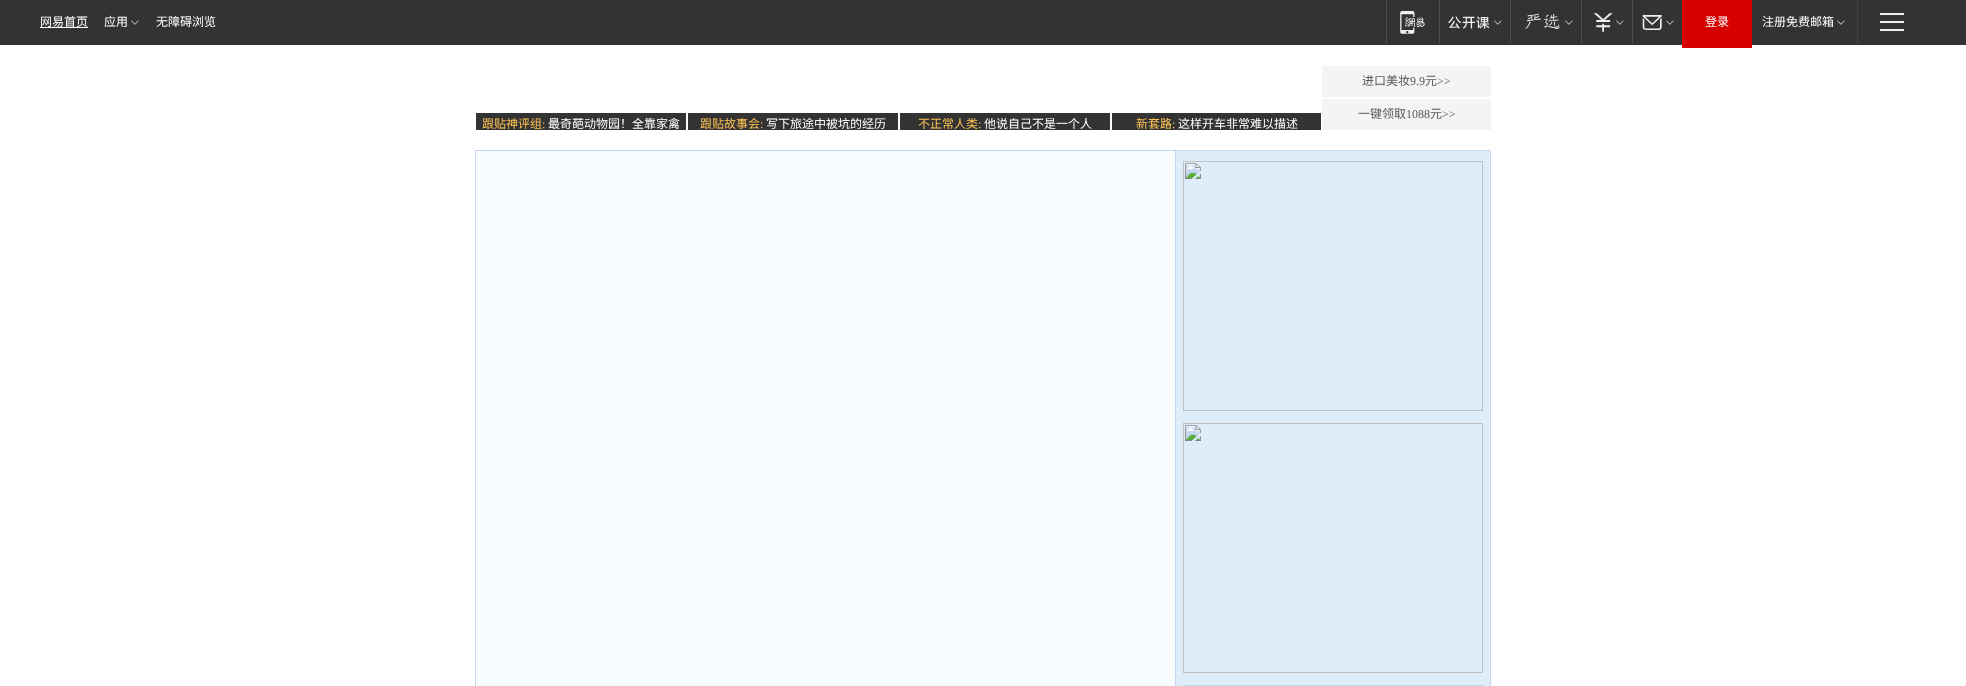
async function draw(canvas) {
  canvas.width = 1966
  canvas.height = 686
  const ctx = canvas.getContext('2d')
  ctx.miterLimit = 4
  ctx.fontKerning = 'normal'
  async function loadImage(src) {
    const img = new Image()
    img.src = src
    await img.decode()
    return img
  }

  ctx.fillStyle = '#fff'
  ctx.fillRect(0, 0, 1966, 686)
  ctx.fillStyle = '#333'
  ctx.fillRect(0, 0, 1966, 45)
  ctx.font = '12px Noto Sans CJK SC'
  ctx.fillStyle = '#fff'
  ctx.fillText('网易首页', 40, 26)
  ctx.fillRect(40, 27, 48, 1)
  ctx.fillText('应用', 104, 26)
  ctx.drawImage(await loadImage('image0.png'), 131, 20, 8, 5)
  ctx.fillText('无障碍浏览', 156, 26)
  ctx.fillStyle = '#4d4d4d'
  ctx.fillRect(1386, 0, 1, 43)
  ctx.drawImage(await loadImage('image1.png'), 1400, 11, 25, 23)
  ctx.fillRect(1439, 0, 1, 43)
  ctx.drawImage(await loadImage('image2.png'), 1448, 16, 42, 13)
  ctx.drawImage(await loadImage('image0.png'), 1494, 20, 8, 5)
  ctx.fillRect(1510, 0, 1, 43)
  ctx.drawImage(await loadImage('image3.png'), 1525, 13, 35, 16)
  ctx.drawImage(await loadImage('image0.png'), 1565, 20, 8, 5)
  ctx.fillRect(1581, 0, 1, 43)
  ctx.drawImage(await loadImage('image4.png'), 1593, 13, 20, 19)
  ctx.drawImage(await loadImage('image0.png'), 1616, 20, 8, 5)
  ctx.fillRect(1632, 0, 1, 43)
  ctx.drawImage(await loadImage('image5.png'), 1642, 15, 20, 15)
  ctx.drawImage(await loadImage('image0.png'), 1666, 20, 8, 5)
  ctx.fillStyle = '#d60000'
  ctx.fillRect(1682, 0, 70, 48)
  ctx.fillStyle = '#fff'
  ctx.fillText('登录', 1705, 26)
  ctx.fillText('注册免费邮箱', 1762, 26)
  ctx.drawImage(await loadImage('image0.png'), 1837, 20, 8, 5)
  ctx.fillStyle = '#444'
  ctx.fillRect(1857, 0, 1, 43)
  ctx.fillStyle = '#efefef'
  ctx.fillRect(1880, 13, 24, 2)
  ctx.fillRect(1880, 21, 24, 2)
  ctx.fillRect(1880, 29, 24, 2)
  ctx.fillStyle = '#f4f4f4'
  ctx.fillRect(1322, 66, 169, 31)
  ctx.fillStyle = '#585858'
  ctx.fillText('进口美妆', 1362, 85)
  ctx.font = '12px Liberation Serif'
  ctx.fillText('9.9', 1410, 85)
  ctx.font = '12px Noto Sans CJK SC'
  ctx.fillText('元', 1425, 85)
  ctx.font = '12px Liberation Serif'
  ctx.fillText('>>', 1437, 85)
  ctx.fillStyle = '#f4f4f4'
  ctx.fillRect(1322, 99, 169, 31)
  ctx.font = '12px Noto Sans CJK SC'
  ctx.fillStyle = '#585858'
  ctx.fillText('一键领取', 1358, 118)
  ctx.font = '12px Liberation Serif'
  ctx.fillText('1088', 1406, 118)
  ctx.font = '12px Noto Sans CJK SC'
  ctx.fillText('元', 1430, 118)
  ctx.font = '12px Liberation Serif'
  ctx.fillText('>>', 1442, 118)
  ctx.fillStyle = '#333'
  ctx.fillRect(476, 113, 210, 17)
  ctx.font = '12px Noto Sans CJK SC'
  ctx.fillStyle = '#fdc255'
  ctx.fillText('跟贴神评组', 482, 128)
  ctx.font = '12px Liberation Serif'
  ctx.fillText(':', 542, 128)
  ctx.font = '12px Noto Sans CJK SC'
  ctx.fillStyle = '#fff'
  ctx.fillText('最奇葩动物园！全靠家禽', 548, 128)
  ctx.fillStyle = '#333'
  ctx.fillRect(688, 113, 210, 17)
  ctx.fillStyle = '#fdc255'
  ctx.fillText('跟贴故事会', 700, 128)
  ctx.font = '12px Liberation Serif'
  ctx.fillText(':', 760, 128)
  ctx.font = '12px Noto Sans CJK SC'
  ctx.fillStyle = '#fff'
  ctx.fillText('写下旅途中被坑的经历', 766, 128)
  ctx.fillStyle = '#333'
  ctx.fillRect(900, 113, 210, 17)
  ctx.fillStyle = '#fdc255'
  ctx.fillText('不正常人类', 918, 128)
  ctx.font = '12px Liberation Serif'
  ctx.fillText(':', 978, 128)
  ctx.font = '12px Noto Sans CJK SC'
  ctx.fillStyle = '#fff'
  ctx.fillText('他说自己不是一个人', 984, 128)
  ctx.fillStyle = '#333'
  ctx.fillRect(1112, 113, 209, 17)
  ctx.fillStyle = '#fdc255'
  ctx.fillText('新套路', 1136, 128)
  ctx.font = '12px Liberation Serif'
  ctx.fillText(':', 1172, 128)
  ctx.font = '12px Noto Sans CJK SC'
  ctx.fillStyle = '#fff'
  ctx.fillText('这样开车非常难以描述', 1178, 128)
  ctx.drawImage(await loadImage('image6.png'), 475, 151, 1016, 535)
  ctx.fillStyle = '#c4d6ec'
  ctx.fillRect(475, 150, 1016, 1)
  ctx.drawImage(await loadImage('image7.png'), 1183, 161, 300, 250)
  ctx.drawImage(await loadImage('image7.png'), 1183, 423, 300, 250)
  ctx.fillRect(1183, 685, 300, 1)
}

draw(document.querySelector('canvas'))
